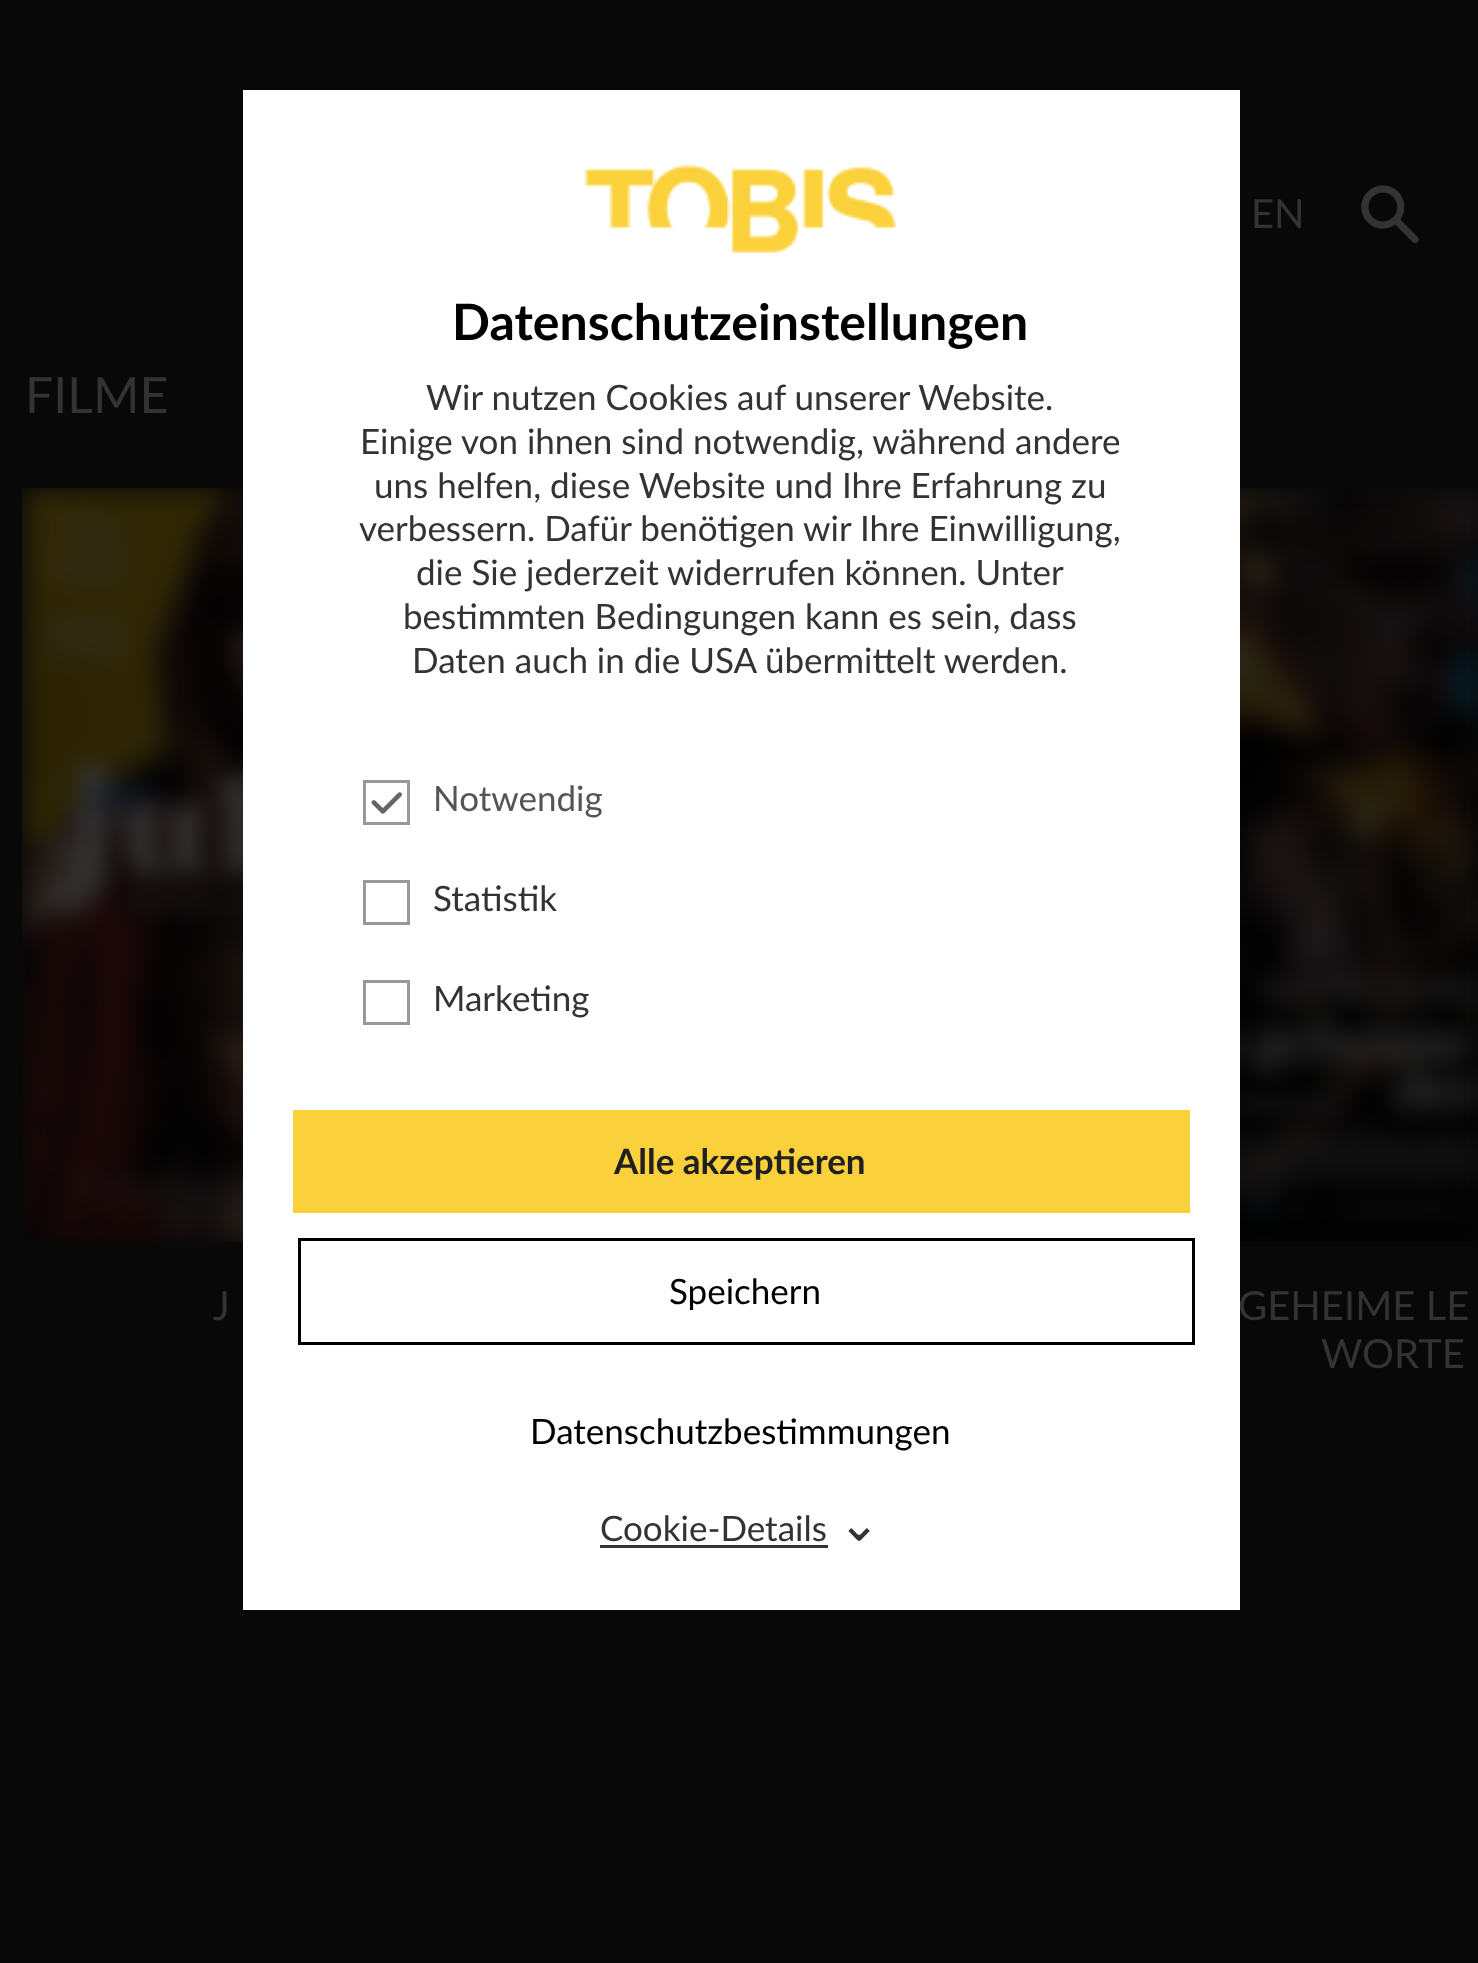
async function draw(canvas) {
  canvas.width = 1478
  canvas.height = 1963
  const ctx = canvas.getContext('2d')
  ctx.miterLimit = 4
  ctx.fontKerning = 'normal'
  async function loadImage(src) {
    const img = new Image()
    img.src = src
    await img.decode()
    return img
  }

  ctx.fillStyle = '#080808'
  ctx.fillRect(0, 0, 1478, 1963)
  ctx.font = '40px Lato'
  ctx.fillStyle = '#333'
  ctx.fillText('EN', 1251, 228)
  ctx.drawImage(await loadImage('image0.png'), 1361, 185, 58, 59)
  ctx.font = '50px Lato'
  ctx.fillText('FILME', 25, 413)
  ctx.drawImage(await loadImage('image1.png'), 22, 488, 221, 754)
  ctx.font = '40px Lato'
  ctx.fillText('J', 213, 1320)
  ctx.drawImage(await loadImage('image2.png'), 1240, 488, 238, 754)
  ctx.fillText('GEHEIME LE', 1238, 1320)
  ctx.fillText('WORTE', 1321, 1368)
  ctx.fillStyle = '#fff'
  ctx.fillRect(243, 90, 997, 1520)
  ctx.drawImage(await loadImage('image3.png'), 584, 164, 312, 90)
  ctx.font = 'bold 50px Lato'
  ctx.fillStyle = '#000'
  ctx.fillText('Datenschutzeinstellungen', 452, 340)
  ctx.font = '35px Lato'
  ctx.fillStyle = '#333'
  ctx.fillText('Wir nutzen Cookies auf unserer Website.', 426, 410)
  ctx.fillText('Einige von ihnen sind notwendig, während andere', 360, 454)
  ctx.fillText('uns helfen, diese Website und Ihre Erfahrung zu', 374, 498)
  ctx.fillText('verbessern. Dafür benötigen wir Ihre Einwilligung,', 359, 541)
  ctx.fillText('die Sie jederzeit widerrufen können. Unter', 416, 585)
  ctx.fillText('bestimmten Bedingungen kann es sein, dass', 403, 629)
  ctx.fillText('Daten auch in die USA übermittelt werden.', 412, 673)
  ctx.strokeStyle = '#999'
  ctx.lineWidth = 3
  ctx.strokeRect(364.5, 781.5, 44, 42)
  ctx.fillStyle = '#555'
  ctx.fillText('Notwendig', 433, 811)
  ctx.drawImage(await loadImage('image4.png'), 371, 792, 31, 22)
  ctx.strokeRect(364.5, 881.5, 44, 42)
  ctx.fillStyle = '#333'
  ctx.fillText('Statistik', 433, 911)
  ctx.strokeRect(364.5, 981.5, 44, 42)
  ctx.fillText('Marketing', 433, 1011)
  ctx.fillStyle = '#fad13b'
  ctx.fillRect(293, 1110, 897, 103)
  ctx.font = 'bold 35px Lato'
  ctx.fillStyle = '#202020'
  ctx.fillText('Alle akzeptieren', 614, 1174)
  ctx.strokeStyle = '#000'
  ctx.strokeRect(299.5, 1239.5, 894, 104)
  ctx.font = '35px Lato'
  ctx.fillStyle = '#000'
  ctx.fillText('Speichern', 669, 1304)
  ctx.fillText('Datenschutzbestimmungen', 530, 1444)
  ctx.fillStyle = '#333'
  ctx.fillText('Cookie-Details', 600, 1541)
  ctx.fillRect(600, 1545, 228, 3)
  ctx.font = '50px DejaVu Sans'
  ctx.save()
  ctx.translate(880, 1504)
  ctx.rotate(180 * Math.PI / 180)
  ctx.fillText('⌃', 0, 0)
  ctx.restore()
}

draw(document.querySelector('canvas'))
